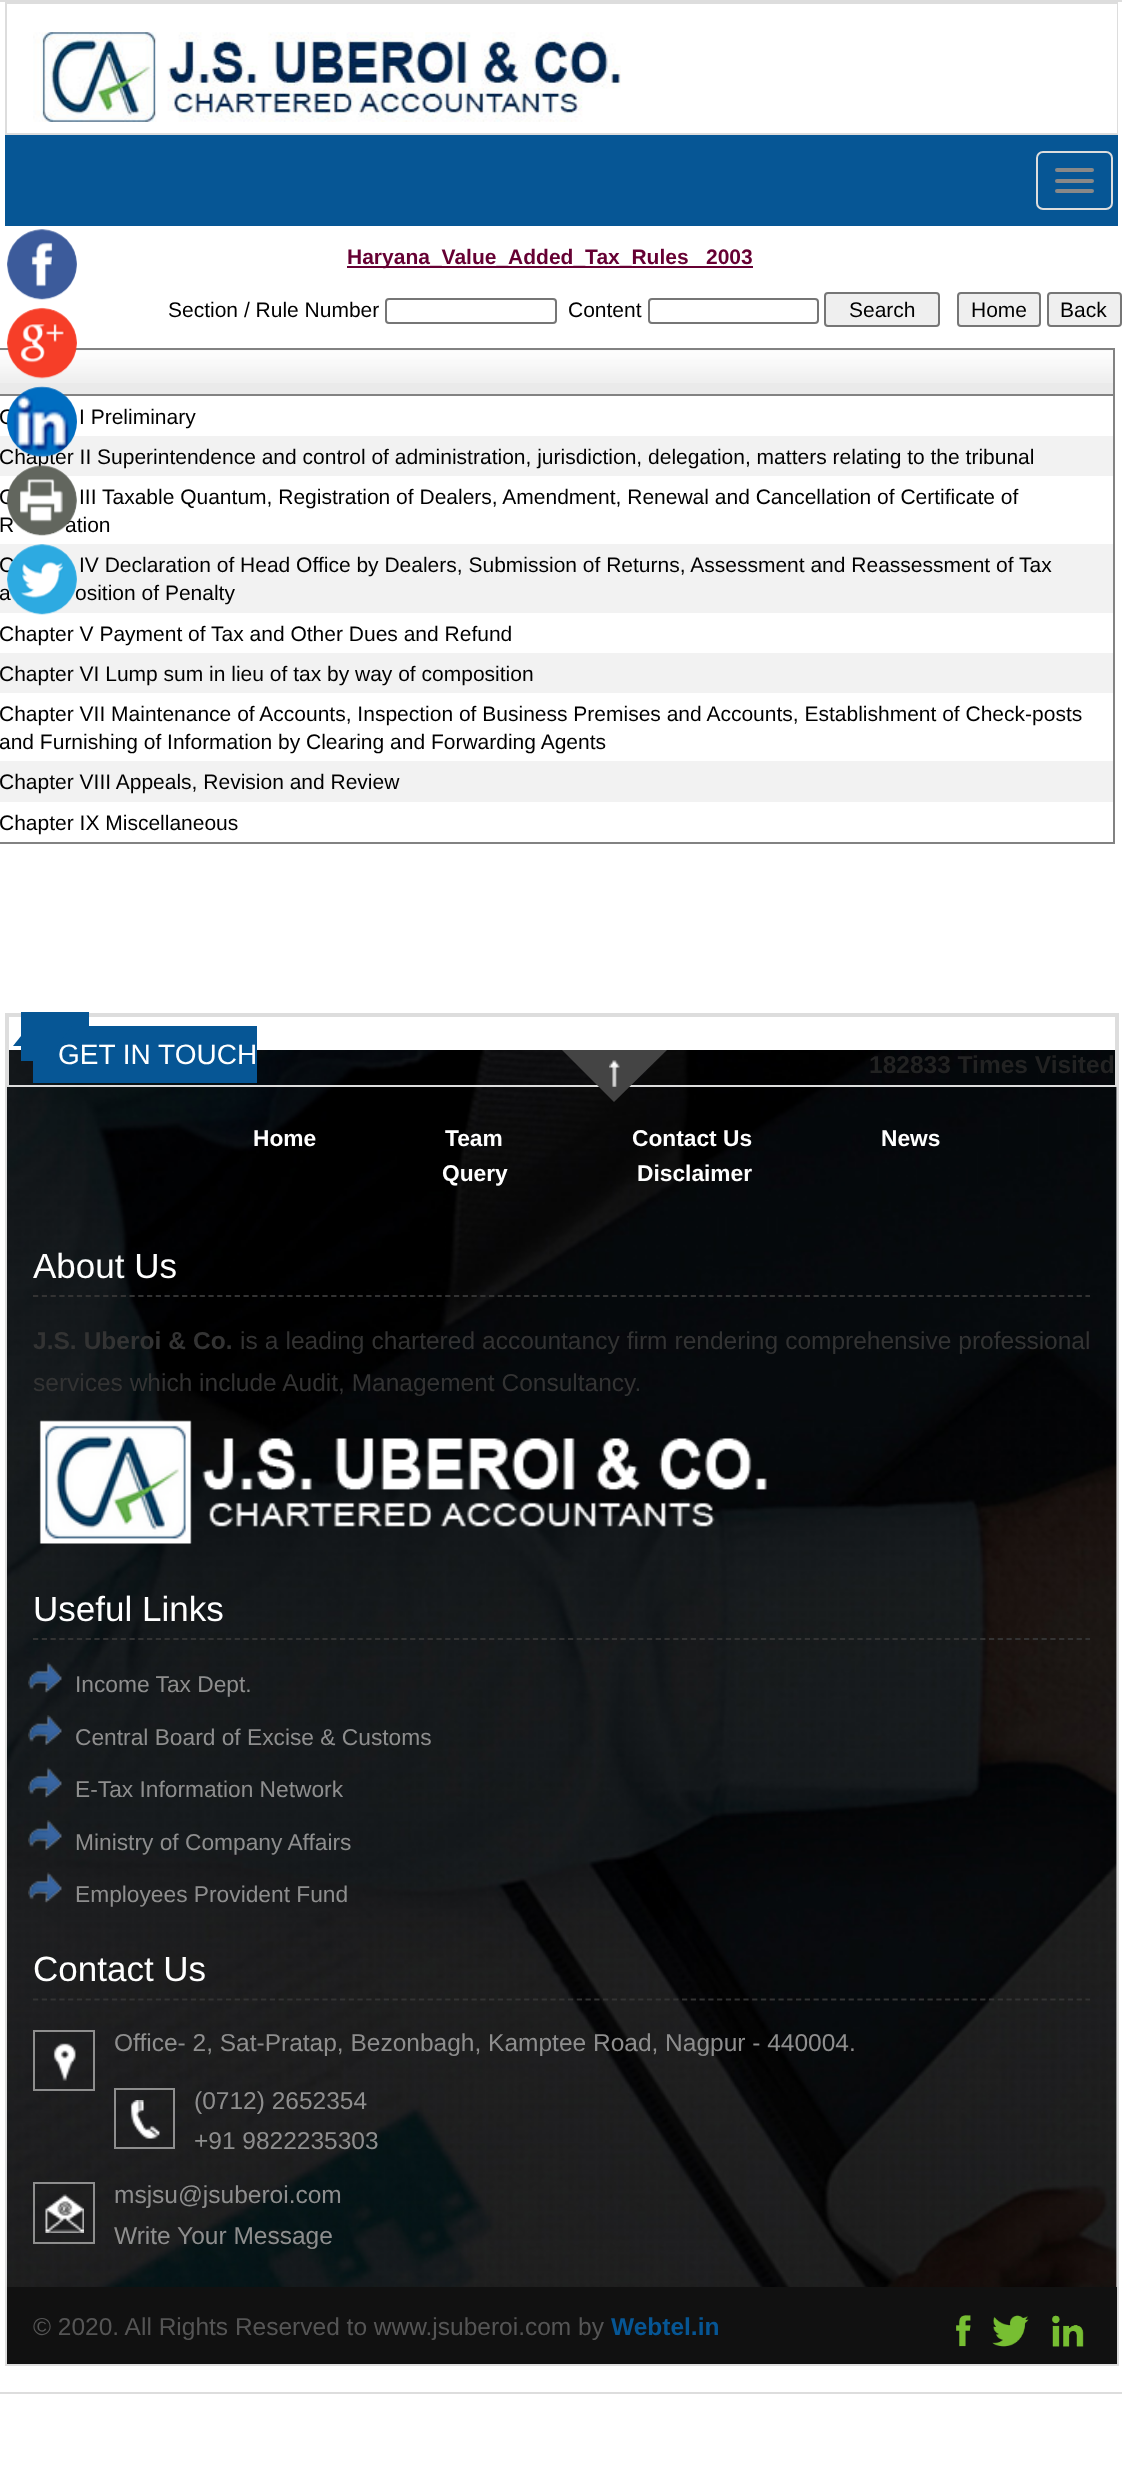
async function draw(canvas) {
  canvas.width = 1122
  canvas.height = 2468
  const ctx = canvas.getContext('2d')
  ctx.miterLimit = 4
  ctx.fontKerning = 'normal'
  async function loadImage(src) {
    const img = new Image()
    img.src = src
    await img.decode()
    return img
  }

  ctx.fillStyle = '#fff'
  ctx.fillRect(0, 0, 1122, 2468)
  ctx.strokeStyle = '#ddd'
  ctx.lineWidth = 2
  ctx.strokeRect(-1, 1, 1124, 2392)
  ctx.fillStyle = '#ddd'
  ctx.fillRect(5, 2, 1113, 2)
  ctx.fillRect(1117, 2, 1, 133)
  ctx.fillRect(5, 133, 1113, 2)
  ctx.fillRect(5, 2, 2, 133)
  ctx.drawImage(await loadImage('image0.png'), 33, 32, 588, 90)
  ctx.drawImage(await loadImage('image1.png'), 7, 229, 70, 71)
  ctx.strokeStyle = '#828282'
  ctx.strokeRect(-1, 349, 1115, 494)
  ctx.fillStyle = '#eaeaea'
  ctx.fillRect(0, 350, 1113, 44)
  ctx.drawImage(await loadImage('image6.png'), 0, 350, 1113, 33)
  ctx.drawImage(await loadImage('image2.png'), 7, 307, 70, 72)
  ctx.fillStyle = '#828282'
  ctx.fillRect(0, 394, 1113, 2)
  ctx.font = '21px Liberation Sans'
  ctx.fillStyle = '#000'
  ctx.fillText('C', -1, 424)
  ctx.fillStyle = '#f2f2f2'
  ctx.fillRect(0, 436, 1113, 40)
  ctx.fillStyle = '#000'
  ctx.fillText('Chapter II Superintendence and control of administration, jurisdiction, delegation, matters relating to the tribunal', -1, 464)
  ctx.drawImage(await loadImage('image3.png'), 7, 386, 70, 72)
  ctx.fillText('C', -1, 504)
  ctx.fillText('R', -1, 532)
  ctx.fillText('ation', 65, 532)
  ctx.drawImage(await loadImage('image4.png'), 7, 465, 70, 71)
  ctx.fillStyle = '#f2f2f2'
  ctx.fillRect(0, 544, 1113, 69)
  ctx.fillStyle = '#000'
  ctx.fillText('C', -1, 572)
  ctx.fillText('a', -1, 600)
  ctx.fillText('osition of Penalty', 75, 600)
  ctx.drawImage(await loadImage('image5.png'), 7, 544, 70, 71)
  ctx.fillStyle = '#065695'
  ctx.fillRect(5, 135, 1113, 91)
  ctx.beginPath()
  ctx.roundRect(1037, 152, 75, 57, 6)
  ctx.strokeStyle = '#ddd'
  ctx.stroke()
  ctx.fillStyle = '#888'
  ctx.beginPath()
  ctx.roundRect(1055, 168, 39, 4, 2)
  ctx.fill()
  ctx.beginPath()
  ctx.roundRect(1055, 179, 39, 4, 2)
  ctx.fill()
  ctx.beginPath()
  ctx.roundRect(1055, 189, 39, 4, 2)
  ctx.fill()
  ctx.fillStyle = '#603'
  ctx.fillRect(347, 266, 406, 2)
  ctx.font = 'bold 21px Liberation Sans'
  ctx.fillText('Haryana_Value_Added_Tax_Rules', 347, 264)
  ctx.fillText('2003', 706, 264)
  ctx.font = '21px Liberation Sans'
  ctx.fillStyle = '#000'
  ctx.fillText('Section / Rule Number', 168, 317)
  ctx.beginPath()
  ctx.roundRect(386, 299, 170, 24, 3)
  ctx.strokeStyle = '#767676'
  ctx.stroke()
  ctx.fillText('Content', 568, 317)
  ctx.beginPath()
  ctx.roundRect(649, 299, 169, 24, 3)
  ctx.stroke()
  ctx.fillStyle = '#efefef'
  ctx.beginPath()
  ctx.roundRect(825, 293, 114, 33, 3)
  ctx.fill()
  ctx.stroke()
  ctx.fillStyle = '#000'
  ctx.fillText('Search', 849, 317)
  ctx.fillStyle = '#efefef'
  ctx.beginPath()
  ctx.roundRect(958, 293, 82, 33, 3)
  ctx.fill()
  ctx.stroke()
  ctx.fillStyle = '#000'
  ctx.fillText('Home', 971, 317)
  ctx.fillStyle = '#efefef'
  ctx.beginPath()
  ctx.roundRect(1048, 293, 73, 33, 3)
  ctx.fill()
  ctx.stroke()
  ctx.fillStyle = '#000'
  ctx.fillText('Back', 1060, 317)
  ctx.fillText('I Preliminary', 79, 424)
  ctx.fillText('III Taxable Quantum, Registration of Dealers, Amendment, Renewal and Cancellation of Certificate of', 79, 504)
  ctx.fillText('IV Declaration of Head Office by Dealers, Submission of Returns, Assessment and Reassessment of Tax', 79, 572)
  ctx.fillText('Chapter V Payment of Tax and Other Dues and Refund', -1, 641)
  ctx.fillStyle = '#f2f2f2'
  ctx.fillRect(0, 653, 1113, 40)
  ctx.fillStyle = '#000'
  ctx.fillText('Chapter VI Lump sum in lieu of tax by way of composition', -1, 681)
  ctx.fillText('Chapter VII Maintenance of Accounts, Inspection of Business Premises and Accounts, Establishment of Check-posts', -1, 721)
  ctx.fillText('and Furnishing of Information by Clearing and Forwarding Agents', -1, 749)
  ctx.fillStyle = '#f2f2f2'
  ctx.fillRect(0, 761, 1113, 41)
  ctx.fillStyle = '#000'
  ctx.fillText('Chapter VIII Appeals, Revision and Review', -1, 789)
  ctx.fillText('Chapter IX Miscellaneous', -1, 830)
  ctx.fillStyle = '#ddd'
  ctx.fillRect(5, 1013, 1113, 2)
  ctx.fillRect(1117, 1013, 2, 1353)
  ctx.fillRect(5, 2364, 1113, 2)
  ctx.fillRect(5, 1013, 2, 1353)
  ctx.drawImage(await loadImage('image7.png'), 7, 1050, 1110, 1237)
  ctx.fillStyle = '#065695'
  ctx.fillRect(33, 1026, 224, 57)
  ctx.fillStyle = '#ddd'
  ctx.fillRect(7, 1015, 1110, 2)
  ctx.fillStyle = '#065695'
  ctx.fillRect(21, 1012, 68, 49)
  ctx.font = '28px Liberation Sans'
  ctx.fillStyle = '#fff'
  ctx.fillText('GET IN TOUCH', 58, 1064)
  ctx.fillStyle = '#065695'
  ctx.beginPath()
  ctx.moveTo(29, 1026)
  ctx.lineTo(72, 1026)
  ctx.lineTo(57, 1046)
  ctx.lineTo(13, 1046)
  ctx.closePath()
  ctx.fill()
  ctx.fillStyle = '#ddd'
  ctx.fillRect(1115, 1015, 2, 72)
  ctx.fillRect(7, 1085, 1110, 2)
  ctx.fillStyle = '#444'
  ctx.beginPath()
  ctx.moveTo(562, 1050)
  ctx.lineTo(667, 1050)
  ctx.lineTo(614, 1102)
  ctx.closePath()
  ctx.fill()
  ctx.drawImage(await loadImage('image8.png'), 609, 1060, 11, 27)
  ctx.font = 'bold 22.75px Liberation Sans'
  ctx.fillStyle = '#fff'
  ctx.fillText('Home', 253, 1146)
  ctx.fillText('Team', 445, 1146)
  ctx.fillText('Contact Us', 632, 1146)
  ctx.fillText('News', 881, 1146)
  ctx.fillText('Query', 442, 1181)
  ctx.fillText('Disclaimer', 637, 1181)
  ctx.beginPath()
  ctx.moveTo(33, 1296)
  ctx.lineTo(1090, 1296)
  ctx.strokeStyle = '#333'
  ctx.lineWidth = 1.8
  ctx.setLineDash([5.25, 3.52])
  ctx.stroke()
  ctx.font = '35px Liberation Sans'
  ctx.fillText('About Us', 33, 1278)
  ctx.wordSpacing = '0.25px'
  ctx.font = 'bold 24.5px Liberation Sans'
  ctx.fillStyle = '#333'
  ctx.fillText('J.S. Uberoi & Co.', 33, 1349)
  ctx.font = '24.5px Liberation Sans'
  ctx.fillText('is a leading chartered accountancy firm rendering comprehensive professional', 240, 1349)
  ctx.wordSpacing = '0px'
  ctx.fillText('services which include Audit, Management Consultancy.', 33, 1391)
  ctx.drawImage(await loadImage('image9.png'), 39, 1420, 728, 124)
  ctx.beginPath()
  ctx.moveTo(33, 1639)
  ctx.lineTo(1090, 1639)
  ctx.stroke()
  ctx.font = '35px Liberation Sans'
  ctx.fillStyle = '#fff'
  ctx.fillText('Useful Links', 33, 1621)
  ctx.drawImage(await loadImage('image10.png'), 28, 1662, 34, 31)
  ctx.font = '22.75px Liberation Sans'
  ctx.fillStyle = '#8e8e8e'
  ctx.fillText('Income Tax Dept.', 75, 1692)
  ctx.drawImage(await loadImage('image11.png'), 28, 1715, 34, 30)
  ctx.fillText('Central Board of Excise & Customs', 75, 1745)
  ctx.drawImage(await loadImage('image12.png'), 28, 1767, 34, 31)
  ctx.fillText('E-Tax Information Network', 75, 1797)
  ctx.drawImage(await loadImage('image13.png'), 28, 1820, 34, 30)
  ctx.fillText('Ministry of Company Affairs', 75, 1850)
  ctx.drawImage(await loadImage('image14.png'), 28, 1872, 34, 31)
  ctx.fillText('Employees Provident Fund', 75, 1902)
  ctx.beginPath()
  ctx.moveTo(33, 1999.5)
  ctx.lineTo(1090, 1999.5)
  ctx.stroke()
  ctx.font = '35px Liberation Sans'
  ctx.fillStyle = '#fff'
  ctx.fillText('Contact Us', 33, 1981)
  ctx.strokeStyle = '#8e8e8e'
  ctx.lineWidth = 2
  ctx.setLineDash([])
  ctx.strokeRect(34, 2031, 60, 59)
  ctx.drawImage(await loadImage('image15.png'), 53, 2043, 23, 38)
  ctx.font = '24.5px Liberation Sans'
  ctx.fillStyle = '#8e8e8e'
  ctx.fillText('Office- 2, Sat-Pratap, Bezonbagh, Kamptee Road, Nagpur - 440004.', 114, 2051)
  ctx.strokeRect(115, 2089, 59, 59)
  ctx.drawImage(await loadImage('image16.png'), 130, 2100, 30, 39)
  ctx.fillText('(0712) 2652354', 194, 2109)
  ctx.fillText('+91 9822235303', 194, 2149)
  ctx.strokeRect(34, 2183, 60, 60)
  ctx.drawImage(await loadImage('image17.png'), 45, 2194, 39, 39)
  ctx.fillText('msjsu@jsuberoi.com', 114, 2203)
  ctx.fillText('Write Your Message', 114, 2244)
  ctx.fillStyle = '#111'
  ctx.fillRect(7, 2287, 1110, 77)
  ctx.fillStyle = '#555'
  ctx.fillText('© 2020. All Rights Reserved to www.jsuberoi.com by', 33, 2335)
  ctx.font = 'bold 24.5px Liberation Sans'
  ctx.fillStyle = '#065695'
  ctx.fillText('Webtel.in', 611, 2335)
  ctx.drawImage(await loadImage('image18.png'), 956, 2315, 15, 32)
  ctx.drawImage(await loadImage('image19.png'), 992, 2315, 37, 32)
  ctx.drawImage(await loadImage('image20.png'), 1051, 2315, 33, 32)
  ctx.fillStyle = '#ddd'
  ctx.fillRect(7, 1015, 2, 72)
  ctx.fillStyle = '#222'
  ctx.fillText('182833 Times Visited', 869, 1073)
}

draw(document.querySelector('canvas'))
